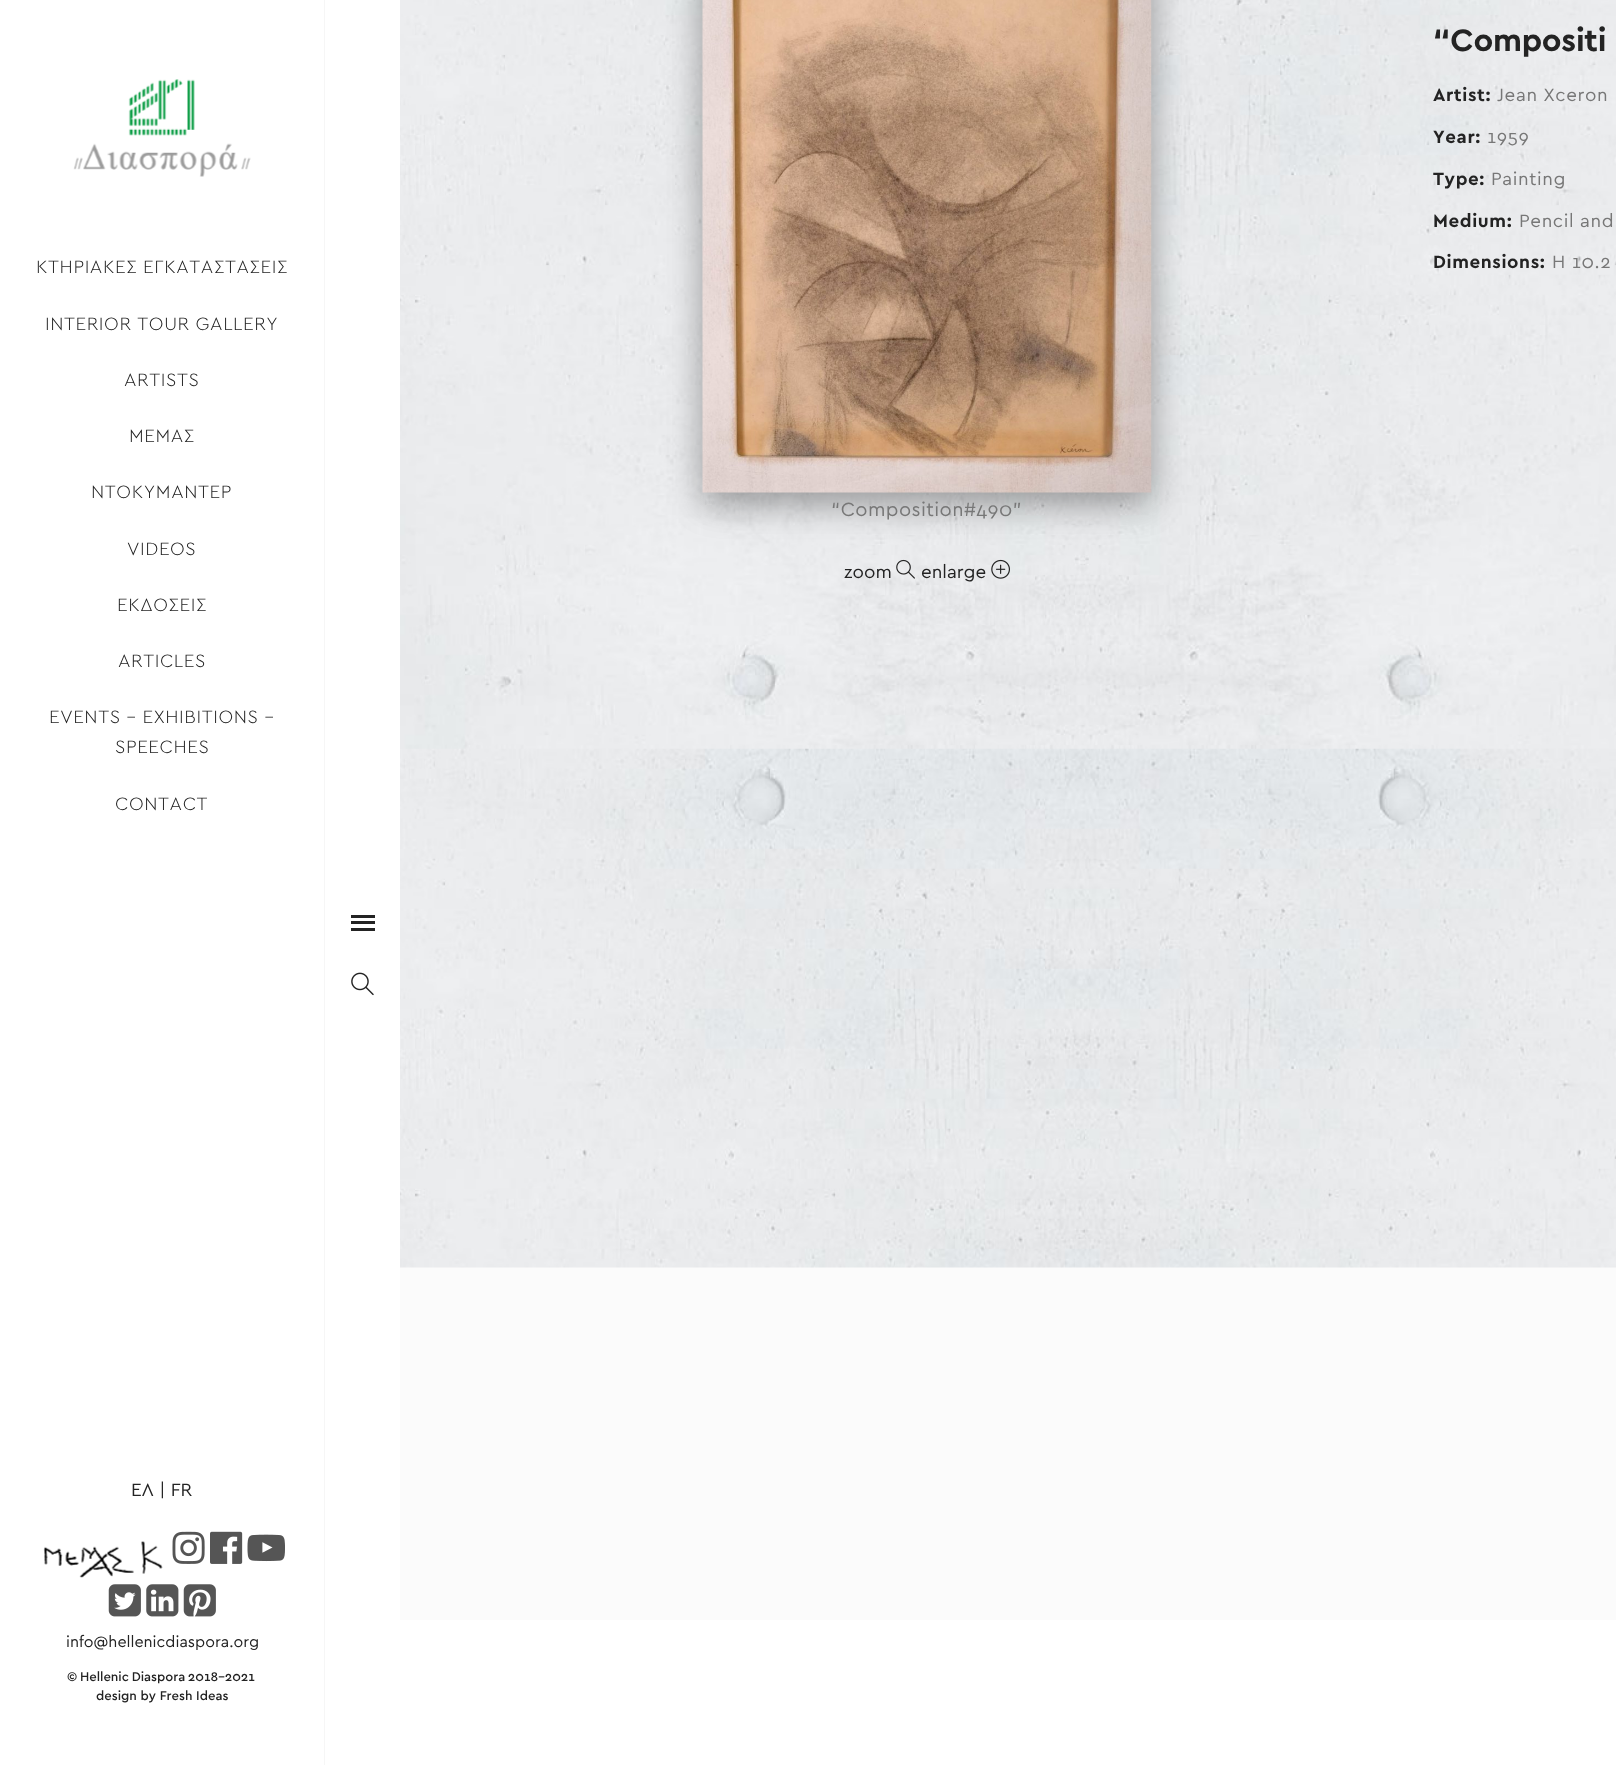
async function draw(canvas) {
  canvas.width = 1616
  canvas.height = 1765
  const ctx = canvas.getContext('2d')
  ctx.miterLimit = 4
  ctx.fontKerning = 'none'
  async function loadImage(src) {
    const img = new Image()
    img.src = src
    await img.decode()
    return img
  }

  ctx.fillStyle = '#fbfbfb'
  ctx.fillRect(0, 0, 1616, 1765)
  ctx.fillStyle = '#fff'
  ctx.fillRect(0, 0, 400, 1765)
  ctx.fillStyle = '#f6f6f6'
  ctx.fillRect(324, 0, 1, 1765)
  ctx.drawImage(await loadImage('image0.png'), 73, 79, 178, 98)
  ctx.letterSpacing = '0.6px'
  ctx.font = '300 18.75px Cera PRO'
  ctx.fillStyle = '#232323'
  ctx.fillText('ΚΤΗΡΙΑΚΈΣ ΕΓΚΑΤΑΣΤΆΣΕΙΣ', 36, 273)
  ctx.fillText('INTERIOR TOUR GALLERY', 45, 330)
  ctx.fillText('ARTISTS', 124, 386)
  ctx.fillText('ΜΕΜΑΣ', 129, 442)
  ctx.fillText('ΝΤΟΚΥΜΑΝΤΕΡ', 91, 498)
  ctx.fillText('VIDEOS', 127, 555)
  ctx.fillText('ΕΚΔΟΣΕΙΣ', 117, 611)
  ctx.fillText('ARTICLES', 118, 667)
  ctx.fillText('EVENTS – EXHIBITIONS –', 49, 723)
  ctx.fillText('SPEECHES', 115, 753)
  ctx.fillText('CONTACT', 115, 810)
  ctx.letterSpacing = '0px'
  ctx.font = '18.75px Cera PRO'
  ctx.fillText('ΕΛ | FR', 131, 1496)
  ctx.drawImage(await loadImage('image1.png'), 43, 1541, 120, 37)
  ctx.drawImage(await loadImage('image2.png'), 172, 1531, 33, 33)
  ctx.drawImage(await loadImage('image3.png'), 210, 1531, 33, 33)
  ctx.drawImage(await loadImage('image4.png'), 247, 1534, 38, 28)
  ctx.drawImage(await loadImage('image5.png'), 108, 1584, 33, 33)
  ctx.drawImage(await loadImage('image6.png'), 146, 1584, 33, 33)
  ctx.drawImage(await loadImage('image7.png'), 183, 1584, 33, 33)
  ctx.font = '16px Cera PRO'
  ctx.fillText('info@hellenicdiaspora.org', 66, 1647)
  ctx.wordSpacing = '-1px'
  ctx.font = '500 13.1px Cera PRO'
  ctx.fillText('© Hellenic Diaspora 2018-2021', 67, 1681)
  ctx.wordSpacing = '0px'
  ctx.fillText('design by Fresh Ideas', 96, 1700)
  ctx.fillRect(351, 921, 24, 3)
  ctx.fillRect(351, 915, 24, 3)
  ctx.fillRect(351, 928, 24, 3)
  ctx.drawImage(await loadImage('image8.png'), 351, 972, 23, 24)
  ctx.drawImage(await loadImage('image9.png'), 400, 0, 1216, 1268)
  ctx.letterSpacing = '-0.25px'
  ctx.font = 'bold 32.5px Cera PRO'
  ctx.fillText('“Compositi', 1433, 51)
  ctx.letterSpacing = '0.6px'
  ctx.font = 'bold 18.75px Cera PRO'
  ctx.fillText('Artist:', 1433, 101)
  ctx.font = '18.75px Cera PRO'
  ctx.fillStyle = '#777'
  ctx.fillText('Jean Xceron', 1497, 101)
  ctx.font = 'bold 18.75px Cera PRO'
  ctx.fillStyle = '#232323'
  ctx.fillText('Year:', 1433, 143)
  ctx.font = '18.75px Cera PRO'
  ctx.fillStyle = '#777'
  ctx.fillText('1959', 1487, 143)
  ctx.font = 'bold 18.75px Cera PRO'
  ctx.fillStyle = '#232323'
  ctx.fillText('Type:', 1433, 185)
  ctx.font = '18.75px Cera PRO'
  ctx.fillStyle = '#777'
  ctx.fillText('Painting', 1491, 185)
  ctx.font = 'bold 18.75px Cera PRO'
  ctx.fillStyle = '#232323'
  ctx.fillText('Medium:', 1433, 227)
  ctx.font = '18.75px Cera PRO'
  ctx.fillStyle = '#777'
  ctx.fillText('Pencil and', 1519, 227)
  ctx.font = 'bold 18.75px Cera PRO'
  ctx.fillStyle = '#232323'
  ctx.fillText('Dimensions:', 1433, 268)
  ctx.font = '18.75px Cera PRO'
  ctx.fillStyle = '#777'
  ctx.fillText('H 10.2', 1552, 268)
  ctx.fillStyle = '#00000030'
  ctx.filter = 'blur(17.5px)'
  ctx.beginPath()
  ctx.rect(703, -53, 448, 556)
  ctx.fill()
  ctx.filter = 'none'
  ctx.fillStyle = '#00000033'
  ctx.filter = 'blur(17.5px)'
  ctx.beginPath()
  ctx.rect(703, -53, 448, 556)
  ctx.fill()
  ctx.filter = 'none'
  ctx.drawImage(await loadImage('image10.png'), 702, 0, 450, 493)
  ctx.letterSpacing = '0.4px'
  ctx.font = '20px Cera PRO'
  ctx.fillStyle = '#777'
  ctx.fillText('“Composition#490”', 831, 516)
  ctx.letterSpacing = '0px'
  ctx.font = '18.75px Cera PRO'
  ctx.fillStyle = '#232323'
  ctx.fillText('zoom', 844, 578)
  ctx.drawImage(await loadImage('image11.png'), 896, 559, 19, 20)
  ctx.fillText('enlarge', 921, 578)
  ctx.drawImage(await loadImage('image12.png'), 991, 559, 19, 20)
  ctx.fillStyle = '#fff'
  ctx.fillRect(400, 1620, 1216, 145)
}

draw(document.querySelector('canvas'))
